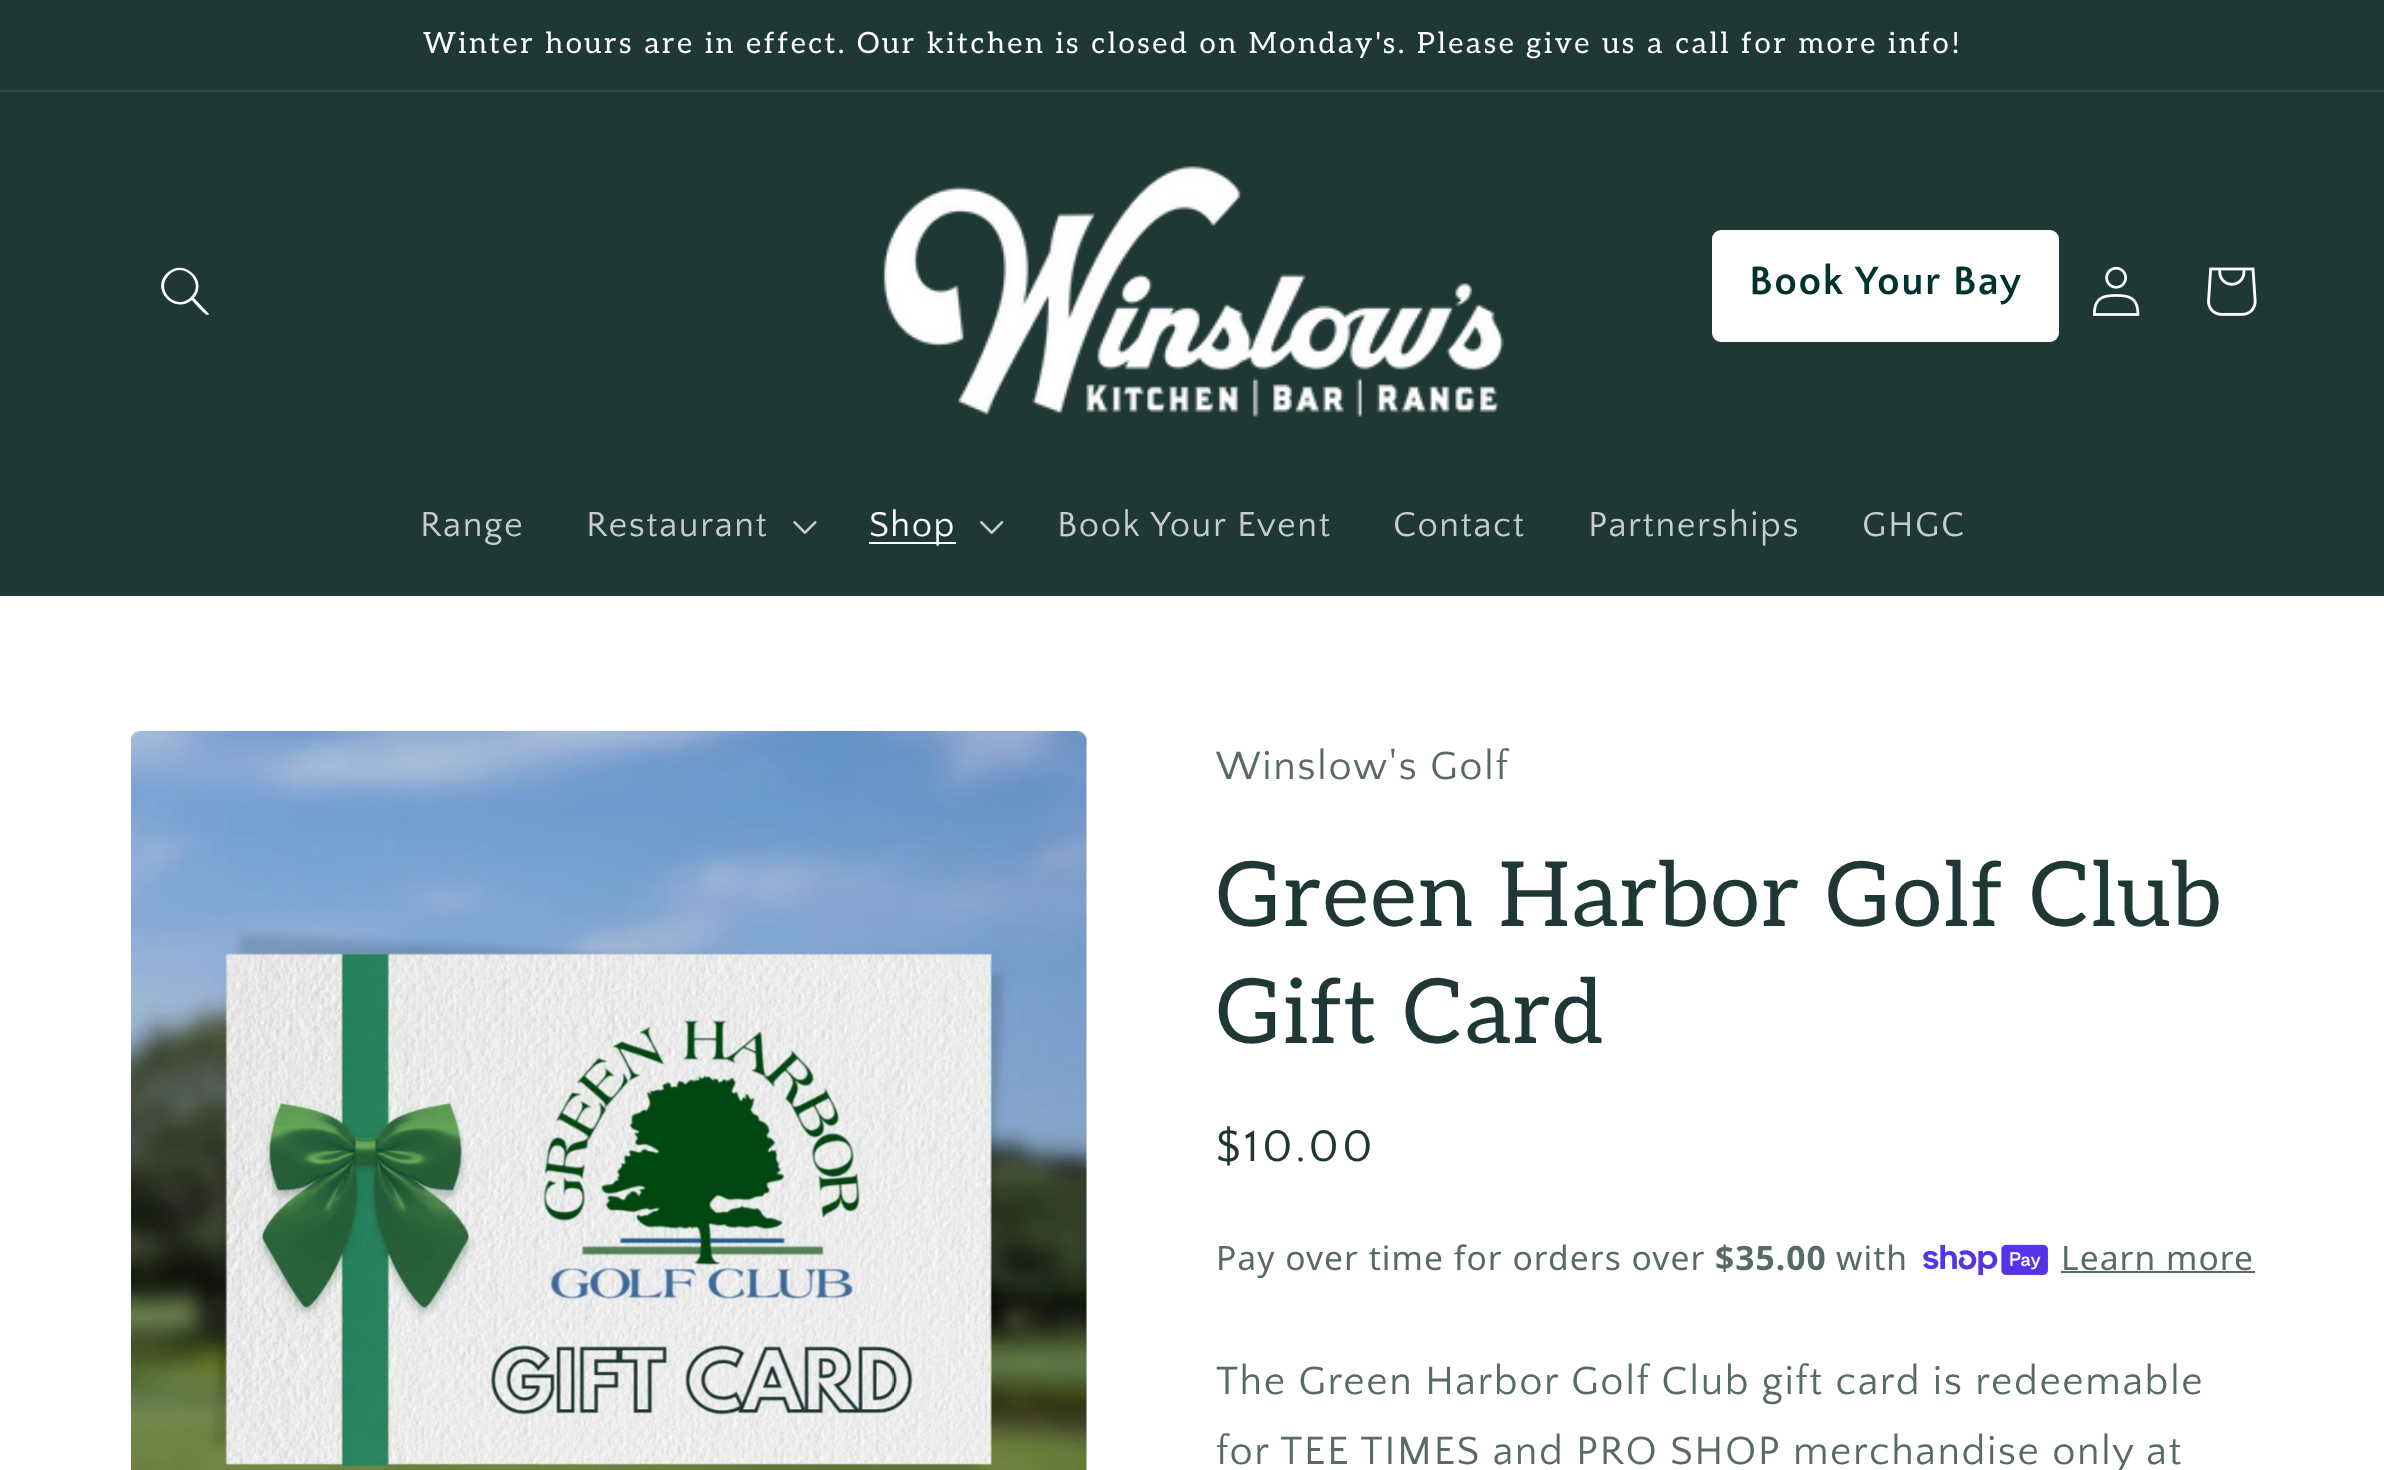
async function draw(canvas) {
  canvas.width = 2384
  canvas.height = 1470
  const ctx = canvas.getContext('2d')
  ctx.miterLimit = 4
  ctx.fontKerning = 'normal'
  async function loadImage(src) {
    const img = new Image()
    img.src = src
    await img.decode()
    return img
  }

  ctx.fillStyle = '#fff'
  ctx.fillRect(0, 0, 2384, 1470)
  ctx.fillStyle = '#1f3835'
  ctx.fillRect(0, 0, 2384, 90)
  ctx.fillStyle = '#314845'
  ctx.fillRect(0, 90, 2384, 2)
  ctx.letterSpacing = '2.6px'
  ctx.font = '29.25px Aleo'
  ctx.fillStyle = '#fff'
  ctx.fillText('Winter hours are in effect. Our kitchen is closed on Monday\'s. Please give us a call for more info!', 423, 53)
  ctx.fillStyle = '#1f3835'
  ctx.fillRect(0, 92, 2384, 504)
  ctx.fillStyle = '#fff'
  ctx.beginPath()
  ctx.moveTo(191, 297)
  ctx.bezierCurveTo(177, 312, 154, 290, 169, 275)
  ctx.bezierCurveTo(183, 260, 206, 283, 191, 297)
  ctx.closePath()
  ctx.moveTo(192, 300)
  ctx.bezierCurveTo(174, 315, 150, 289, 167, 273)
  ctx.bezierCurveTo(184, 257, 209, 281, 194, 298)
  ctx.lineTo(209, 314)
  ctx.lineTo(208, 315)
  ctx.bezierCurveTo(206, 316, 194, 303, 192, 300)
  ctx.closePath()
  ctx.fill('evenodd')
  ctx.drawImage(await loadImage('image0.png'), 882, 166, 622, 251)
  ctx.beginPath()
  ctx.roundRect(1712, 230, 347, 112, 9)
  ctx.fill()
  ctx.letterSpacing = '1.55px'
  ctx.font = 'bold 41.4px Quattrocento Sans'
  ctx.fillStyle = '#00332e'
  ctx.fillText('Book Your Bay', 1749, 294)
  ctx.drawImage(await loadImage('image1.png'), 2092, 266, 48, 50)
  ctx.drawImage(await loadImage('image2.png'), 2207, 267, 50, 49)
  ctx.font = '36.25px Quattrocento Sans'
  ctx.fillStyle = '#c7cdcd'
  ctx.fillText('Range', 420, 536)
  ctx.fillText('Restaurant', 586, 536)
  ctx.drawImage(await loadImage('image3.png'), 793, 521, 24, 13)
  ctx.fillStyle = '#fff'
  ctx.fillRect(869, 542, 87, 2)
  ctx.fillText('Shop', 869, 536)
  ctx.drawImage(await loadImage('image4.png'), 980, 521, 24, 13)
  ctx.fillStyle = '#c7cdcd'
  ctx.fillText('Book Your Event', 1057, 536)
  ctx.fillText('Contact', 1393, 536)
  ctx.fillText('Partnerships', 1588, 536)
  ctx.fillText('GHGC', 1862, 536)
  ctx.drawImage(await loadImage('image5.png'), 131, 731, 956, 739)
  ctx.font = '41.4px Quattrocento Sans'
  ctx.fillStyle = '#576a68'
  ctx.fillText('Winslow\'s Golf', 1216, 779)
  ctx.letterSpacing = '1.35px'
  ctx.font = '90px Aleo'
  ctx.fillStyle = '#1f3835'
  ctx.fillText('Green Harbor Golf Club', 1216, 926)
  ctx.fillText('Gift Card', 1216, 1043)
  ctx.letterSpacing = '3.5px'
  ctx.font = '46.5px Quattrocento Sans'
  ctx.fillText('$10.00', 1216, 1161)
  ctx.letterSpacing = '1.05px'
  ctx.font = '33.6px Noto Sans'
  ctx.fillStyle = '#576a68'
  ctx.fillText('Pay over time for orders over', 1216, 1270)
  ctx.font = 'bold 33.6px Noto Sans'
  ctx.fillText('$35.00', 1715, 1270)
  ctx.font = '33.6px Noto Sans'
  ctx.fillText('with', 1836, 1270)
  ctx.drawImage(await loadImage('image6.png'), 1923, 1244, 125, 32)
  ctx.fillText('Learn more', 2061, 1270)
  ctx.fillRect(2061, 1271, 194, 2)
  ctx.letterSpacing = '1.55px'
  ctx.font = '41.4px Quattrocento Sans'
  ctx.fillText('The Green Harbor Golf Club gift card is redeemable', 1216, 1394)
  ctx.fillText('for TEE TIMES and PRO SHOP merchandise only at', 1216, 1464)
}

draw(document.querySelector('canvas'))
